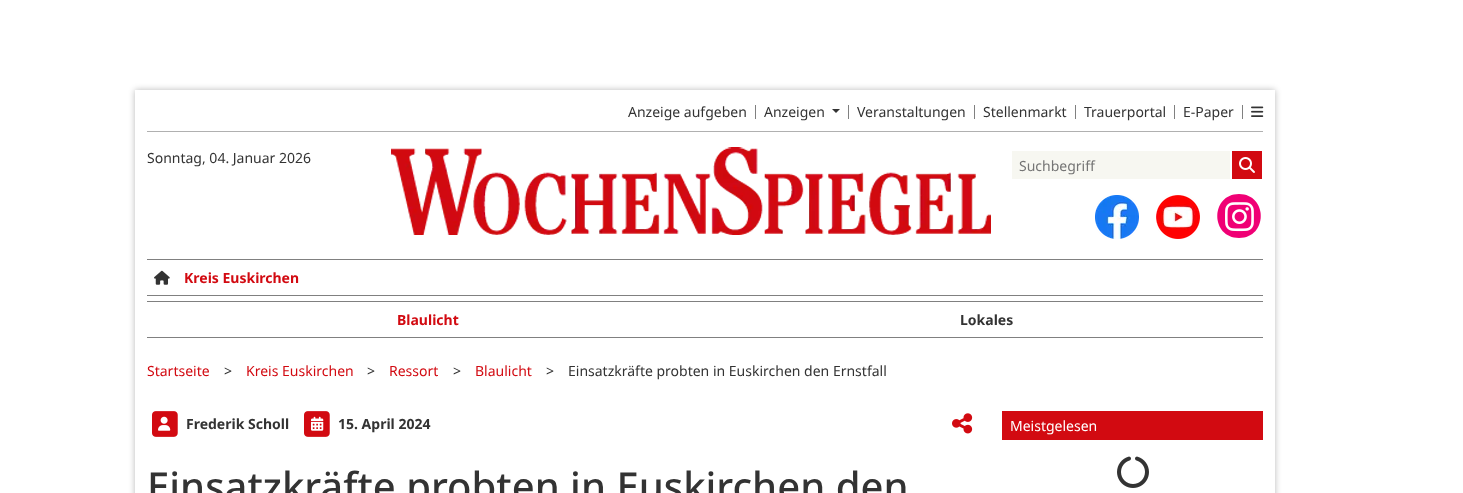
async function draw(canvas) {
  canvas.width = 1463
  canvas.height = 493
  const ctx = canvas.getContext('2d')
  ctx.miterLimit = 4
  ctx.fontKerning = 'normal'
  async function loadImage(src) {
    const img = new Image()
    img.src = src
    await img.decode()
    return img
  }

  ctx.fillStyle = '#fff'
  ctx.fillRect(0, 0, 1463, 493)
  ctx.save()
  ctx.beginPath()
  ctx.moveTo(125, 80)
  ctx.lineTo(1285, 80)
  ctx.lineTo(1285, 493)
  ctx.lineTo(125, 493)
  ctx.closePath()
  ctx.moveTo(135, 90)
  ctx.lineTo(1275, 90)
  ctx.lineTo(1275, 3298)
  ctx.lineTo(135, 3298)
  ctx.closePath()
  ctx.clip('evenodd')
  ctx.fillStyle = '#00000047'
  ctx.filter = 'blur(3px)'
  ctx.beginPath()
  ctx.rect(135, 90, 1140, 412)
  ctx.fill()
  ctx.filter = 'none'
  ctx.restore()
  ctx.font = '14px Noto Sans'
  ctx.fillStyle = '#333'
  ctx.fillText('Anzeige aufgeben', 628, 117)
  ctx.fillStyle = '#808080'
  ctx.fillRect(755, 105, 1, 14)
  ctx.fillStyle = '#333'
  ctx.fillText('Anzeigen', 764, 117)
  ctx.beginPath()
  ctx.moveTo(832, 109)
  ctx.lineTo(840, 109)
  ctx.lineTo(836, 113)
  ctx.closePath()
  ctx.fill()
  ctx.fillStyle = '#808080'
  ctx.fillRect(848, 105, 1, 14)
  ctx.fillStyle = '#333'
  ctx.fillText('Veranstaltungen', 857, 117)
  ctx.fillStyle = '#808080'
  ctx.fillRect(974, 105, 1, 14)
  ctx.fillStyle = '#333'
  ctx.fillText('Stellenmarkt', 983, 117)
  ctx.fillStyle = '#808080'
  ctx.fillRect(1075, 105, 1, 14)
  ctx.fillStyle = '#333'
  ctx.fillText('Trauerportal', 1084, 117)
  ctx.fillStyle = '#808080'
  ctx.fillRect(1174, 105, 1, 14)
  ctx.fillStyle = '#333'
  ctx.fillText('E-Paper', 1183, 117)
  ctx.fillStyle = '#808080'
  ctx.fillRect(1242, 105, 1, 14)
  ctx.drawImage(await loadImage('image0.png'), 1251, 106, 13, 11)
  ctx.fillStyle = '#b0b0b0'
  ctx.fillRect(147, 131, 1116, 1)
  ctx.fillStyle = '#333'
  ctx.fillText('Sonntag, 04. Januar 2026', 147, 163)
  ctx.drawImage(await loadImage('image1.png'), 391, 147, 600, 88)
  ctx.fillStyle = '#f7f7f1'
  ctx.fillRect(1012, 151, 218, 28)
  ctx.fillStyle = '#757575'
  ctx.fillText('Suchbegriff', 1019, 171)
  ctx.fillStyle = '#d20a11'
  ctx.fillRect(1232, 151, 30, 28)
  ctx.drawImage(await loadImage('image2.png'), 1239, 157, 16, 16)
  ctx.drawImage(await loadImage('image3.png'), 1095, 195, 44, 44)
  ctx.drawImage(await loadImage('image4.png'), 1156, 195, 44, 44)
  ctx.fillStyle = '#f00075'
  ctx.beginPath()
  ctx.moveTo(1239, 238)
  ctx.bezierCurveTo(1268, 238, 1268, 194, 1239, 194)
  ctx.bezierCurveTo(1210, 194, 1210, 238, 1239, 238)
  ctx.closePath()
  ctx.fill()
  ctx.drawImage(await loadImage('image5.png'), 1225, 202, 29, 30)
  ctx.fillStyle = '#808080'
  ctx.fillRect(147, 259, 1116, 1)
  ctx.fillRect(147, 295, 1116, 1)
  ctx.drawImage(await loadImage('image6.png'), 154, 270, 16, 15)
  ctx.font = 'bold 14px Noto Sans'
  ctx.fillStyle = '#d20a11'
  ctx.fillText('Kreis Euskirchen', 184, 283)
  ctx.fillStyle = '#808080'
  ctx.fillRect(147, 301, 1116, 1)
  ctx.fillRect(147, 337, 1116, 1)
  ctx.fillStyle = '#d20a11'
  ctx.fillText('Blaulicht', 397, 325)
  ctx.fillStyle = '#333'
  ctx.fillText('Lokales', 960, 325)
  ctx.font = '14px Noto Sans'
  ctx.fillStyle = '#d20a11'
  ctx.fillText('Startseite', 147, 376)
  ctx.fillStyle = '#333'
  ctx.fillText('>', 224, 376)
  ctx.fillStyle = '#d20a11'
  ctx.fillText('Kreis Euskirchen', 246, 376)
  ctx.fillStyle = '#333'
  ctx.fillText('>', 367, 376)
  ctx.fillStyle = '#d20a11'
  ctx.fillText('Ressort', 389, 376)
  ctx.fillStyle = '#333'
  ctx.fillText('>', 453, 376)
  ctx.fillStyle = '#d20a11'
  ctx.fillText('Blaulicht', 475, 376)
  ctx.fillStyle = '#333'
  ctx.fillText('>', 546, 376)
  ctx.fillText('Einsatzkräfte probten in Euskirchen den Ernstfall', 568, 376)
  ctx.drawImage(await loadImage('image7.png'), 152, 411, 26, 26)
  ctx.drawImage(await loadImage('image8.png'), 158, 416, 13, 15)
  ctx.font = 'bold 14px Noto Sans'
  ctx.fillText('Frederik Scholl', 186, 429)
  ctx.drawImage(await loadImage('image7.png'), 304, 411, 26, 26)
  ctx.drawImage(await loadImage('image9.png'), 311, 416, 13, 15)
  ctx.fillText('15. April 2024', 338, 429)
  ctx.drawImage(await loadImage('image10.png'), 952, 413, 21, 21)
  ctx.font = '500 40px Noto Sans'
  ctx.fillText('Einsatzkräfte probten in Euskirchen den', 147, 501)
  ctx.fillStyle = '#d20a11'
  ctx.fillRect(1002, 411, 261, 29)
  ctx.font = '14px Noto Sans'
  ctx.fillStyle = '#fff'
  ctx.fillText('Meistgelesen', 1010, 431)
  ctx.drawImage(await loadImage('image11.png'), 1117, 456, 32, 32)
}

draw(document.querySelector('canvas'))
